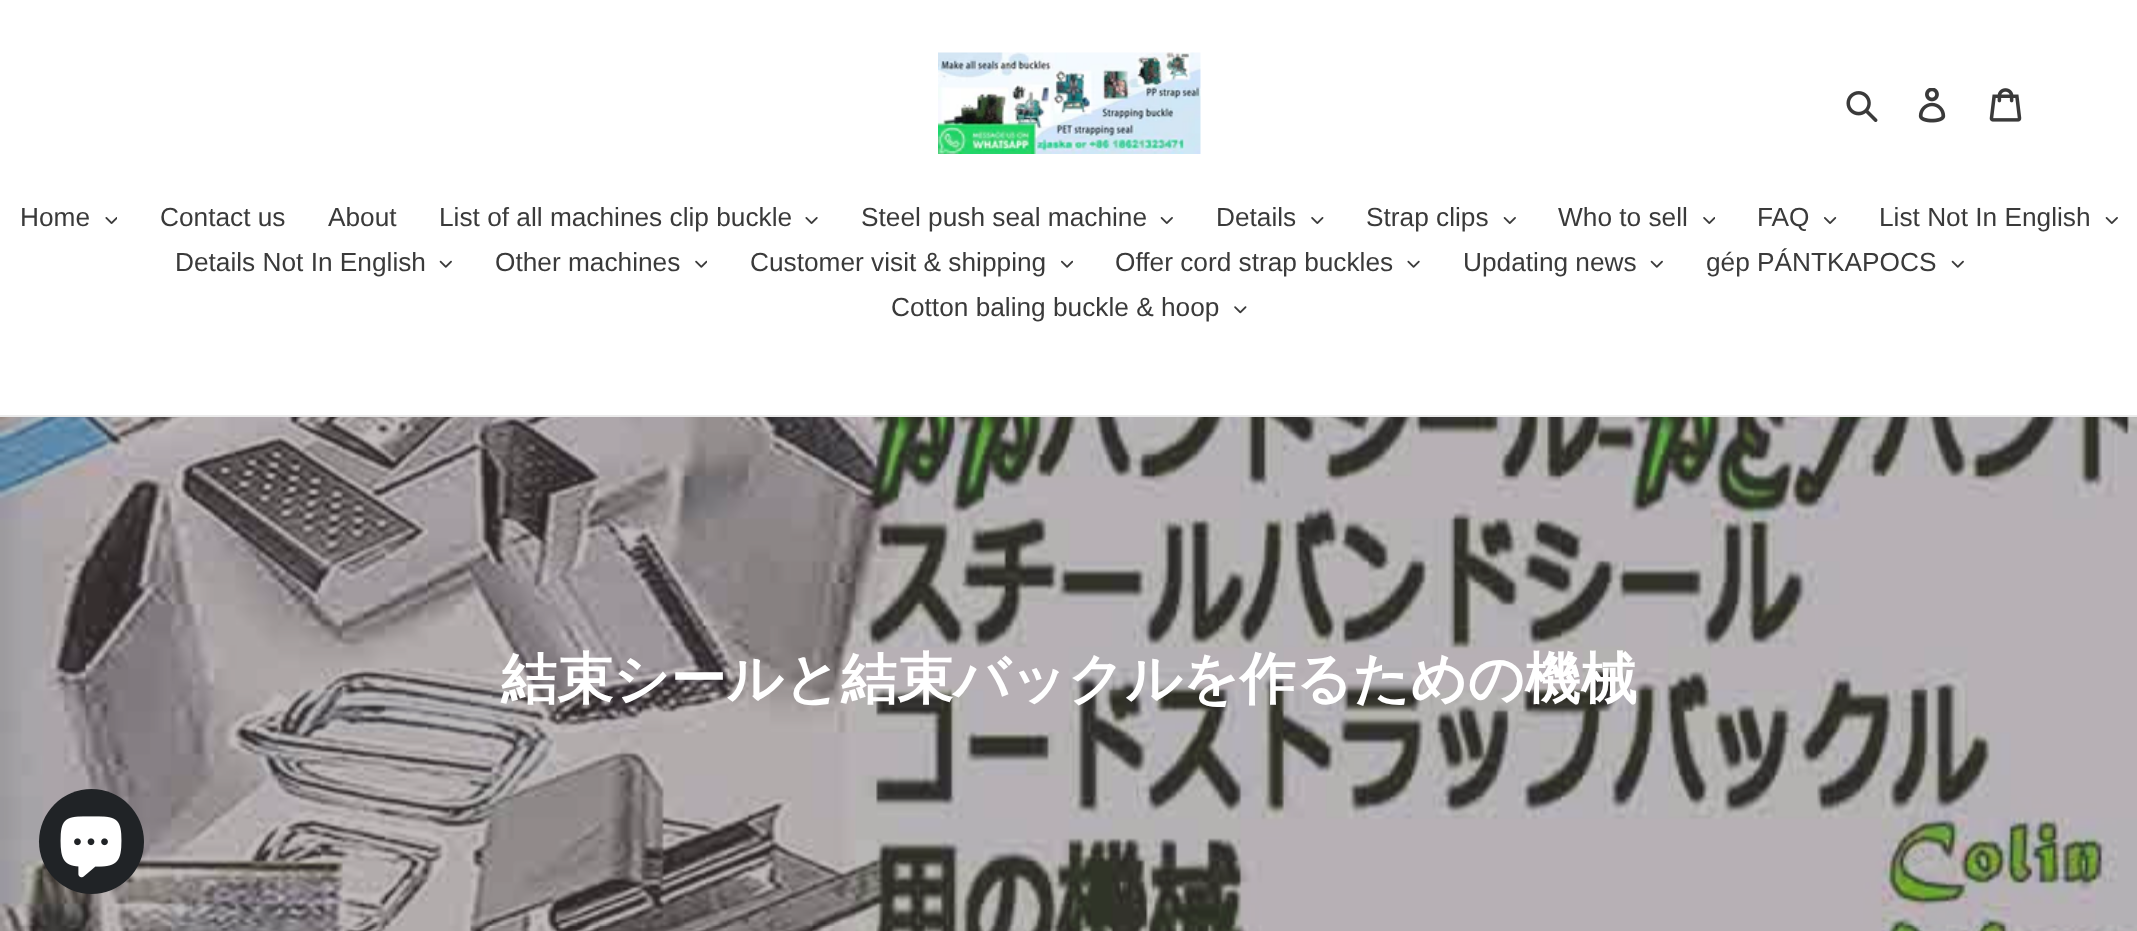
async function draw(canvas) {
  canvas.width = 2137
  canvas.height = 931
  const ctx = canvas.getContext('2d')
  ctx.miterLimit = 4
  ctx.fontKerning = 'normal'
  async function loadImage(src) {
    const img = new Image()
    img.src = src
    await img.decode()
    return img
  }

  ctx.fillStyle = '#fff'
  ctx.fillRect(0, 0, 2137, 931)
  ctx.drawImage(await loadImage('image0.png'), 938, 52, 263, 102)
  ctx.drawImage(await loadImage('image1.png'), 1846, 91, 32, 31)
  ctx.drawImage(await loadImage('image2.png'), 1918, 88, 28, 35)
  ctx.drawImage(await loadImage('image3.png'), 1989, 88, 33, 34)
  ctx.fillStyle = '#ebebeb'
  ctx.fillRect(0, 415, 2137, 2)
  ctx.font = '26.25px Liberation Sans'
  ctx.fillStyle = '#3a3a3a'
  ctx.fillText('Home', 20, 226)
  ctx.drawImage(await loadImage('image4.png'), 105, 217, 12, 7)
  ctx.fillText('Contact us', 160, 226)
  ctx.fillText('About', 328, 226)
  ctx.fillText('List of all machines clip buckle', 439, 226)
  ctx.drawImage(await loadImage('image5.png'), 805, 217, 13, 7)
  ctx.fillText('Steel push seal machine', 861, 226)
  ctx.drawImage(await loadImage('image6.png'), 1160, 217, 13, 7)
  ctx.fillText('Details', 1216, 226)
  ctx.drawImage(await loadImage('image7.png'), 1311, 217, 13, 7)
  ctx.fillText('Strap clips', 1366, 226)
  ctx.drawImage(await loadImage('image6.png'), 1503, 217, 13, 7)
  ctx.fillText('Who to sell', 1558, 226)
  ctx.drawImage(await loadImage('image8.png'), 1703, 217, 12, 7)
  ctx.fillText('FAQ', 1757, 226)
  ctx.drawImage(await loadImage('image9.png'), 1824, 217, 13, 7)
  ctx.fillText('List Not In English', 1879, 226)
  ctx.drawImage(await loadImage('image6.png'), 2105, 217, 13, 7)
  ctx.fillText('Details Not In English', 175, 271)
  ctx.drawImage(await loadImage('image10.png'), 439, 260, 13, 8)
  ctx.fillText('Other machines', 495, 271)
  ctx.drawImage(await loadImage('image11.png'), 695, 260, 12, 8)
  ctx.fillText('Customer visit & shipping', 750, 271)
  ctx.drawImage(await loadImage('image12.png'), 1061, 260, 12, 8)
  ctx.fillText('Offer cord strap buckles', 1115, 271)
  ctx.drawImage(await loadImage('image13.png'), 1407, 260, 13, 8)
  ctx.fillText('Updating news', 1463, 271)
  ctx.drawImage(await loadImage('image10.png'), 1650, 260, 13, 8)
  ctx.fillText('gép PÁNTKAPOCS', 1706, 271)
  ctx.drawImage(await loadImage('image10.png'), 1951, 260, 13, 8)
  ctx.fillText('Cotton baling buckle & hoop', 891, 316)
  ctx.drawImage(await loadImage('image14.png'), 1234, 306, 13, 8)
  ctx.drawImage(await loadImage('image15.png'), 0, 417, 2137, 514)
  ctx.font = 'bold 56px WenQuanYi Zen Hei'
  ctx.fillStyle = '#fff'
  ctx.fillText('結束シールと結束バックルを作るための機械', 501, 698)
  ctx.fillStyle = '#202326'
  ctx.beginPath()
  ctx.arc(91.5, 841.5, 52.5, 0, 2 * Math.PI)
  ctx.fill()
  ctx.drawImage(await loadImage('image16.png'), 60, 816, 62, 62)
}

draw(document.querySelector('canvas'))
